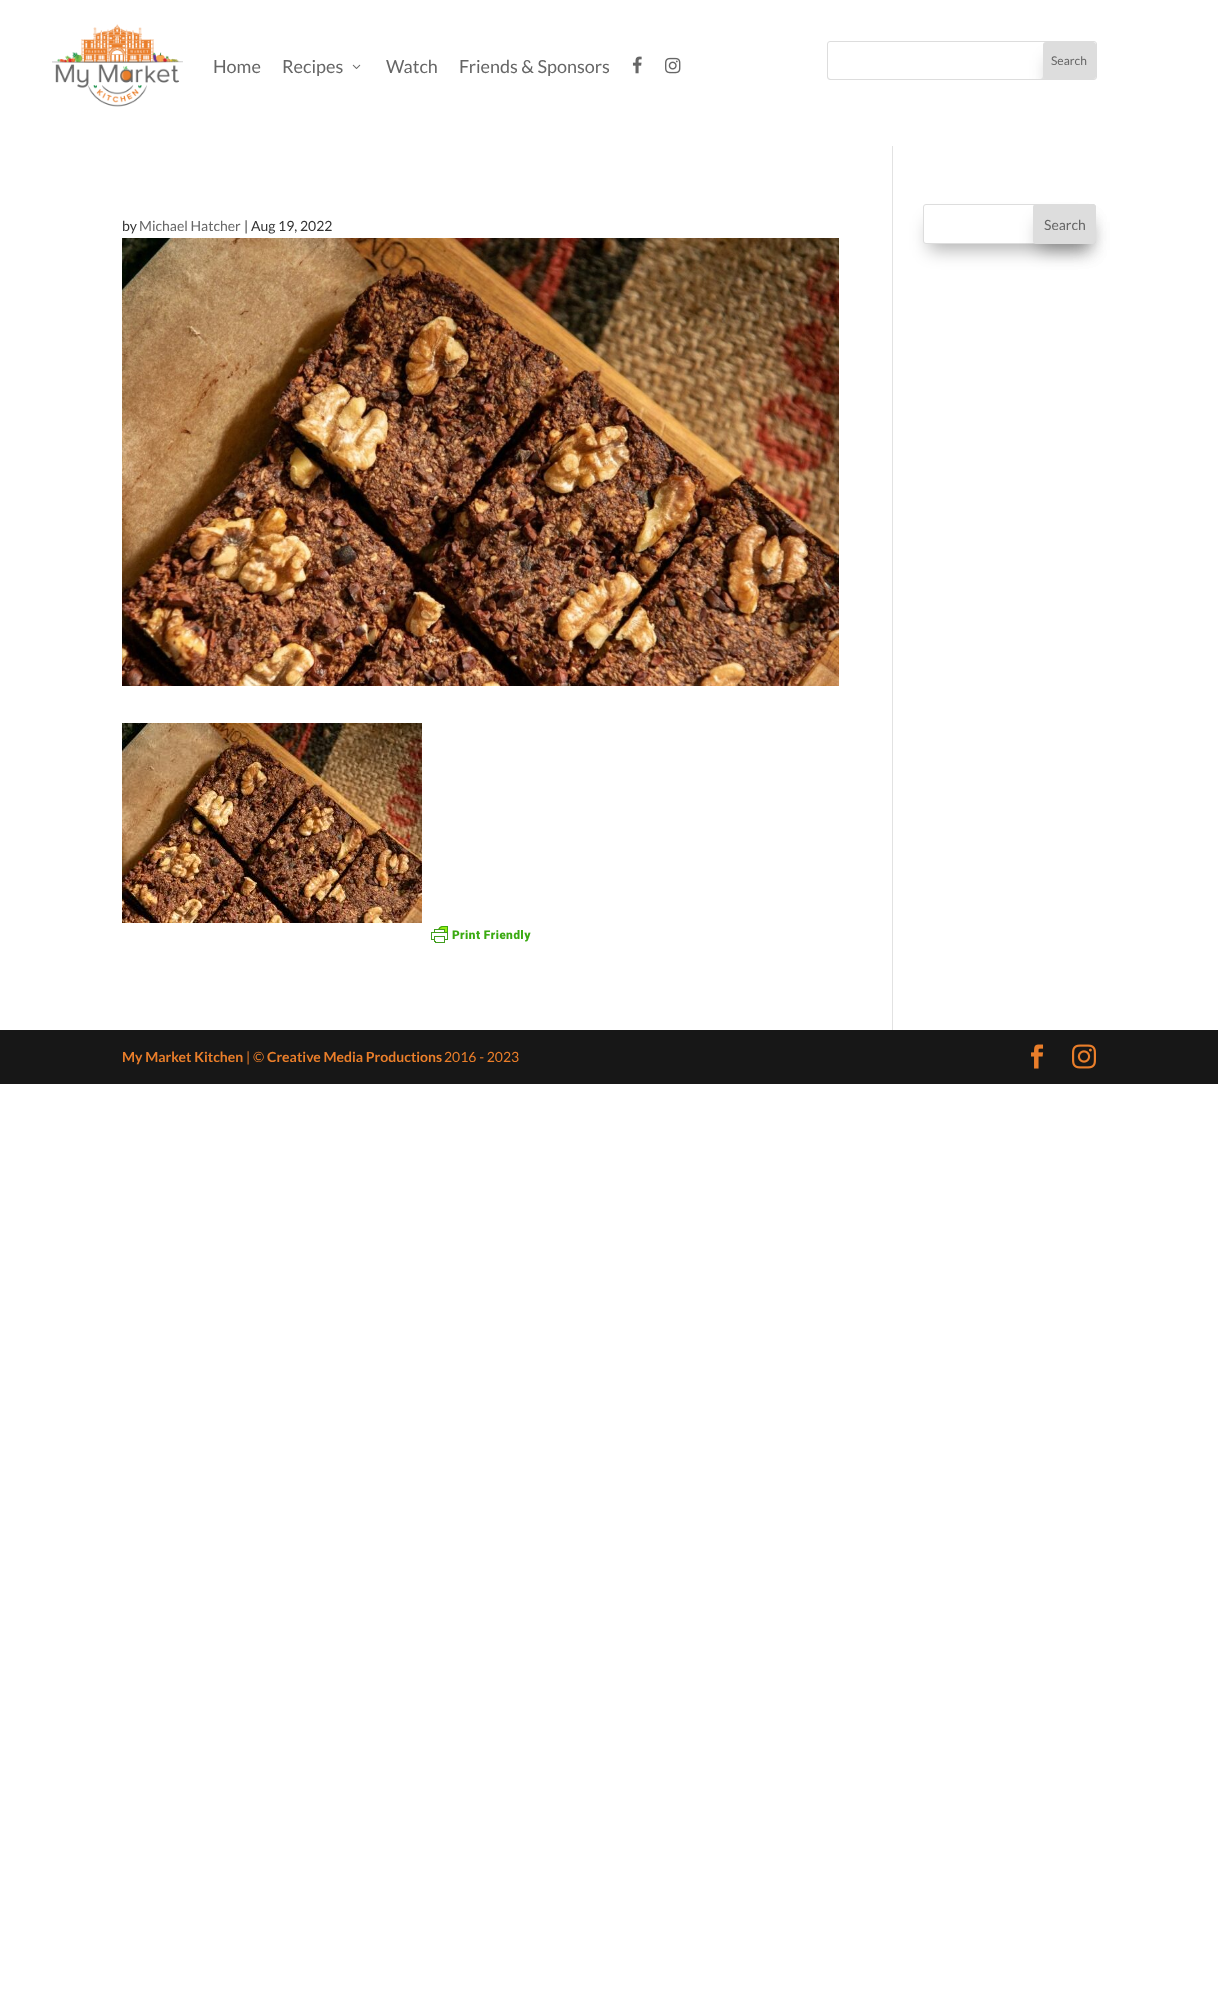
async function draw(canvas) {
  canvas.width = 1218
  canvas.height = 2000
  const ctx = canvas.getContext('2d')
  ctx.miterLimit = 4
  ctx.fontKerning = 'normal'
  async function loadImage(src) {
    const img = new Image()
    img.src = src
    await img.decode()
    return img
  }

  ctx.fillStyle = '#fff'
  ctx.fillRect(0, 0, 1218, 2000)
  ctx.drawImage(await loadImage('image0.png'), 52, 24, 131, 83)
  ctx.font = '18px Lato'
  ctx.fillStyle = '#666'
  ctx.fillText('Home', 213, 73)
  ctx.fillText('Recipes', 282, 73)
  ctx.drawImage(await loadImage('image1.png'), 352, 64, 9, 5)
  ctx.fillText('Watch', 386, 73)
  ctx.fillText('Friends & Sponsors', 459, 73)
  ctx.drawImage(await loadImage('image2.png'), 632, 56, 10, 18)
  ctx.drawImage(await loadImage('image3.png'), 665, 57, 16, 17)
  ctx.beginPath()
  ctx.roundRect(827.5, 41.5, 269, 38, 2.5)
  ctx.strokeStyle = '#ddd'
  ctx.stroke()
  ctx.save()
  ctx.beginPath()
  ctx.roundRect(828, 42, 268, 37, 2)
  ctx.clip()
  ctx.beginPath()
  ctx.moveTo(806, 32)
  ctx.lineTo(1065, 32)
  ctx.lineTo(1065, 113)
  ctx.lineTo(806, 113)
  ctx.closePath()
  ctx.moveTo(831, 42)
  ctx.lineTo(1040, 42)
  ctx.bezierCurveTo(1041.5, 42, 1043, 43.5, 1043, 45)
  ctx.lineTo(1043, 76)
  ctx.bezierCurveTo(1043, 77.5, 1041.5, 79, 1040, 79)
  ctx.lineTo(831, 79)
  ctx.bezierCurveTo(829.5, 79, 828, 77.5, 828, 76)
  ctx.lineTo(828, 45)
  ctx.bezierCurveTo(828, 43.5, 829.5, 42, 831, 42)
  ctx.closePath()
  ctx.clip('evenodd')
  ctx.fillStyle = '#0000004d'
  ctx.filter = 'blur(9px)'
  ctx.beginPath()
  ctx.rect(834, 60, 203, 25)
  ctx.fill()
  ctx.filter = 'none'
  ctx.restore()
  ctx.save()
  ctx.beginPath()
  ctx.roundRect(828, 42, 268, 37, 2)
  ctx.clip()
  ctx.fillStyle = '#0000004d'
  ctx.filter = 'blur(9px)'
  ctx.beginPath()
  ctx.rect(1049, 60, 41, 25)
  ctx.fill()
  ctx.filter = 'none'
  ctx.restore()
  ctx.save()
  ctx.beginPath()
  ctx.roundRect(828, 42, 268, 37, 2)
  ctx.clip()
  ctx.fillStyle = '#ddd'
  ctx.beginPath()
  ctx.roundRect(1043, 42, 53, 37, 3)
  ctx.fill()
  ctx.restore()
  ctx.font = '12px Lato'
  ctx.fillText('Search', 1051, 65)
  ctx.fillStyle = '#e2e2e2'
  ctx.fillRect(892, 146, 1, 884)
  ctx.font = '14px Lato'
  ctx.fillStyle = '#333'
  ctx.fillText('by', 122, 231)
  ctx.fillStyle = '#666'
  ctx.fillText('Michael Hatcher', 139, 231)
  ctx.fillStyle = '#333'
  ctx.fillText('| Aug 19, 2022', 244, 231)
  ctx.drawImage(await loadImage('image4.png'), 122, 238, 717, 448)
  ctx.drawImage(await loadImage('image5.png'), 122, 723, 300, 200)
  ctx.drawImage(await loadImage('image6.png'), 431, 926, 100, 17)
  ctx.fillStyle = '#0000004d'
  ctx.filter = 'blur(9px)'
  ctx.beginPath()
  ctx.rect(929, 222, 161, 28)
  ctx.fill()
  ctx.filter = 'none'
  ctx.fillStyle = '#fff'
  ctx.beginPath()
  ctx.roundRect(923.5, 204.5, 172, 39, 2.5)
  ctx.fill()
  ctx.stroke()
  ctx.fillStyle = '#0000004d'
  ctx.filter = 'blur(9px)'
  ctx.beginPath()
  ctx.rect(1039, 222, 51, 28)
  ctx.fill()
  ctx.filter = 'none'
  ctx.fillStyle = '#ddd'
  ctx.beginPath()
  ctx.roundRect(1033.5, 204.5, 62, 39, 2.5)
  ctx.fill()
  ctx.stroke()
  ctx.fillStyle = '#666'
  ctx.fillText('Search', 1044, 230)
  ctx.fillStyle = '#171717'
  ctx.fillRect(0, 1030, 1218, 54)
  ctx.font = 'bold 14px Lato'
  ctx.fillStyle = '#ea7e2a'
  ctx.fillText('My Market Kitchen', 122, 1062)
  ctx.font = '14px Lato'
  ctx.fillText('| ©', 246, 1062)
  ctx.font = 'bold 14px Lato'
  ctx.fillText('Creative Media Productions', 267, 1062)
  ctx.font = '14px Lato'
  ctx.fillText('2016 - 2023', 444, 1062)
  ctx.drawImage(await loadImage('image7.png'), 1031, 1044, 13, 25)
  ctx.drawImage(await loadImage('image8.png'), 1072, 1044, 24, 25)
}

draw(document.querySelector('canvas'))
